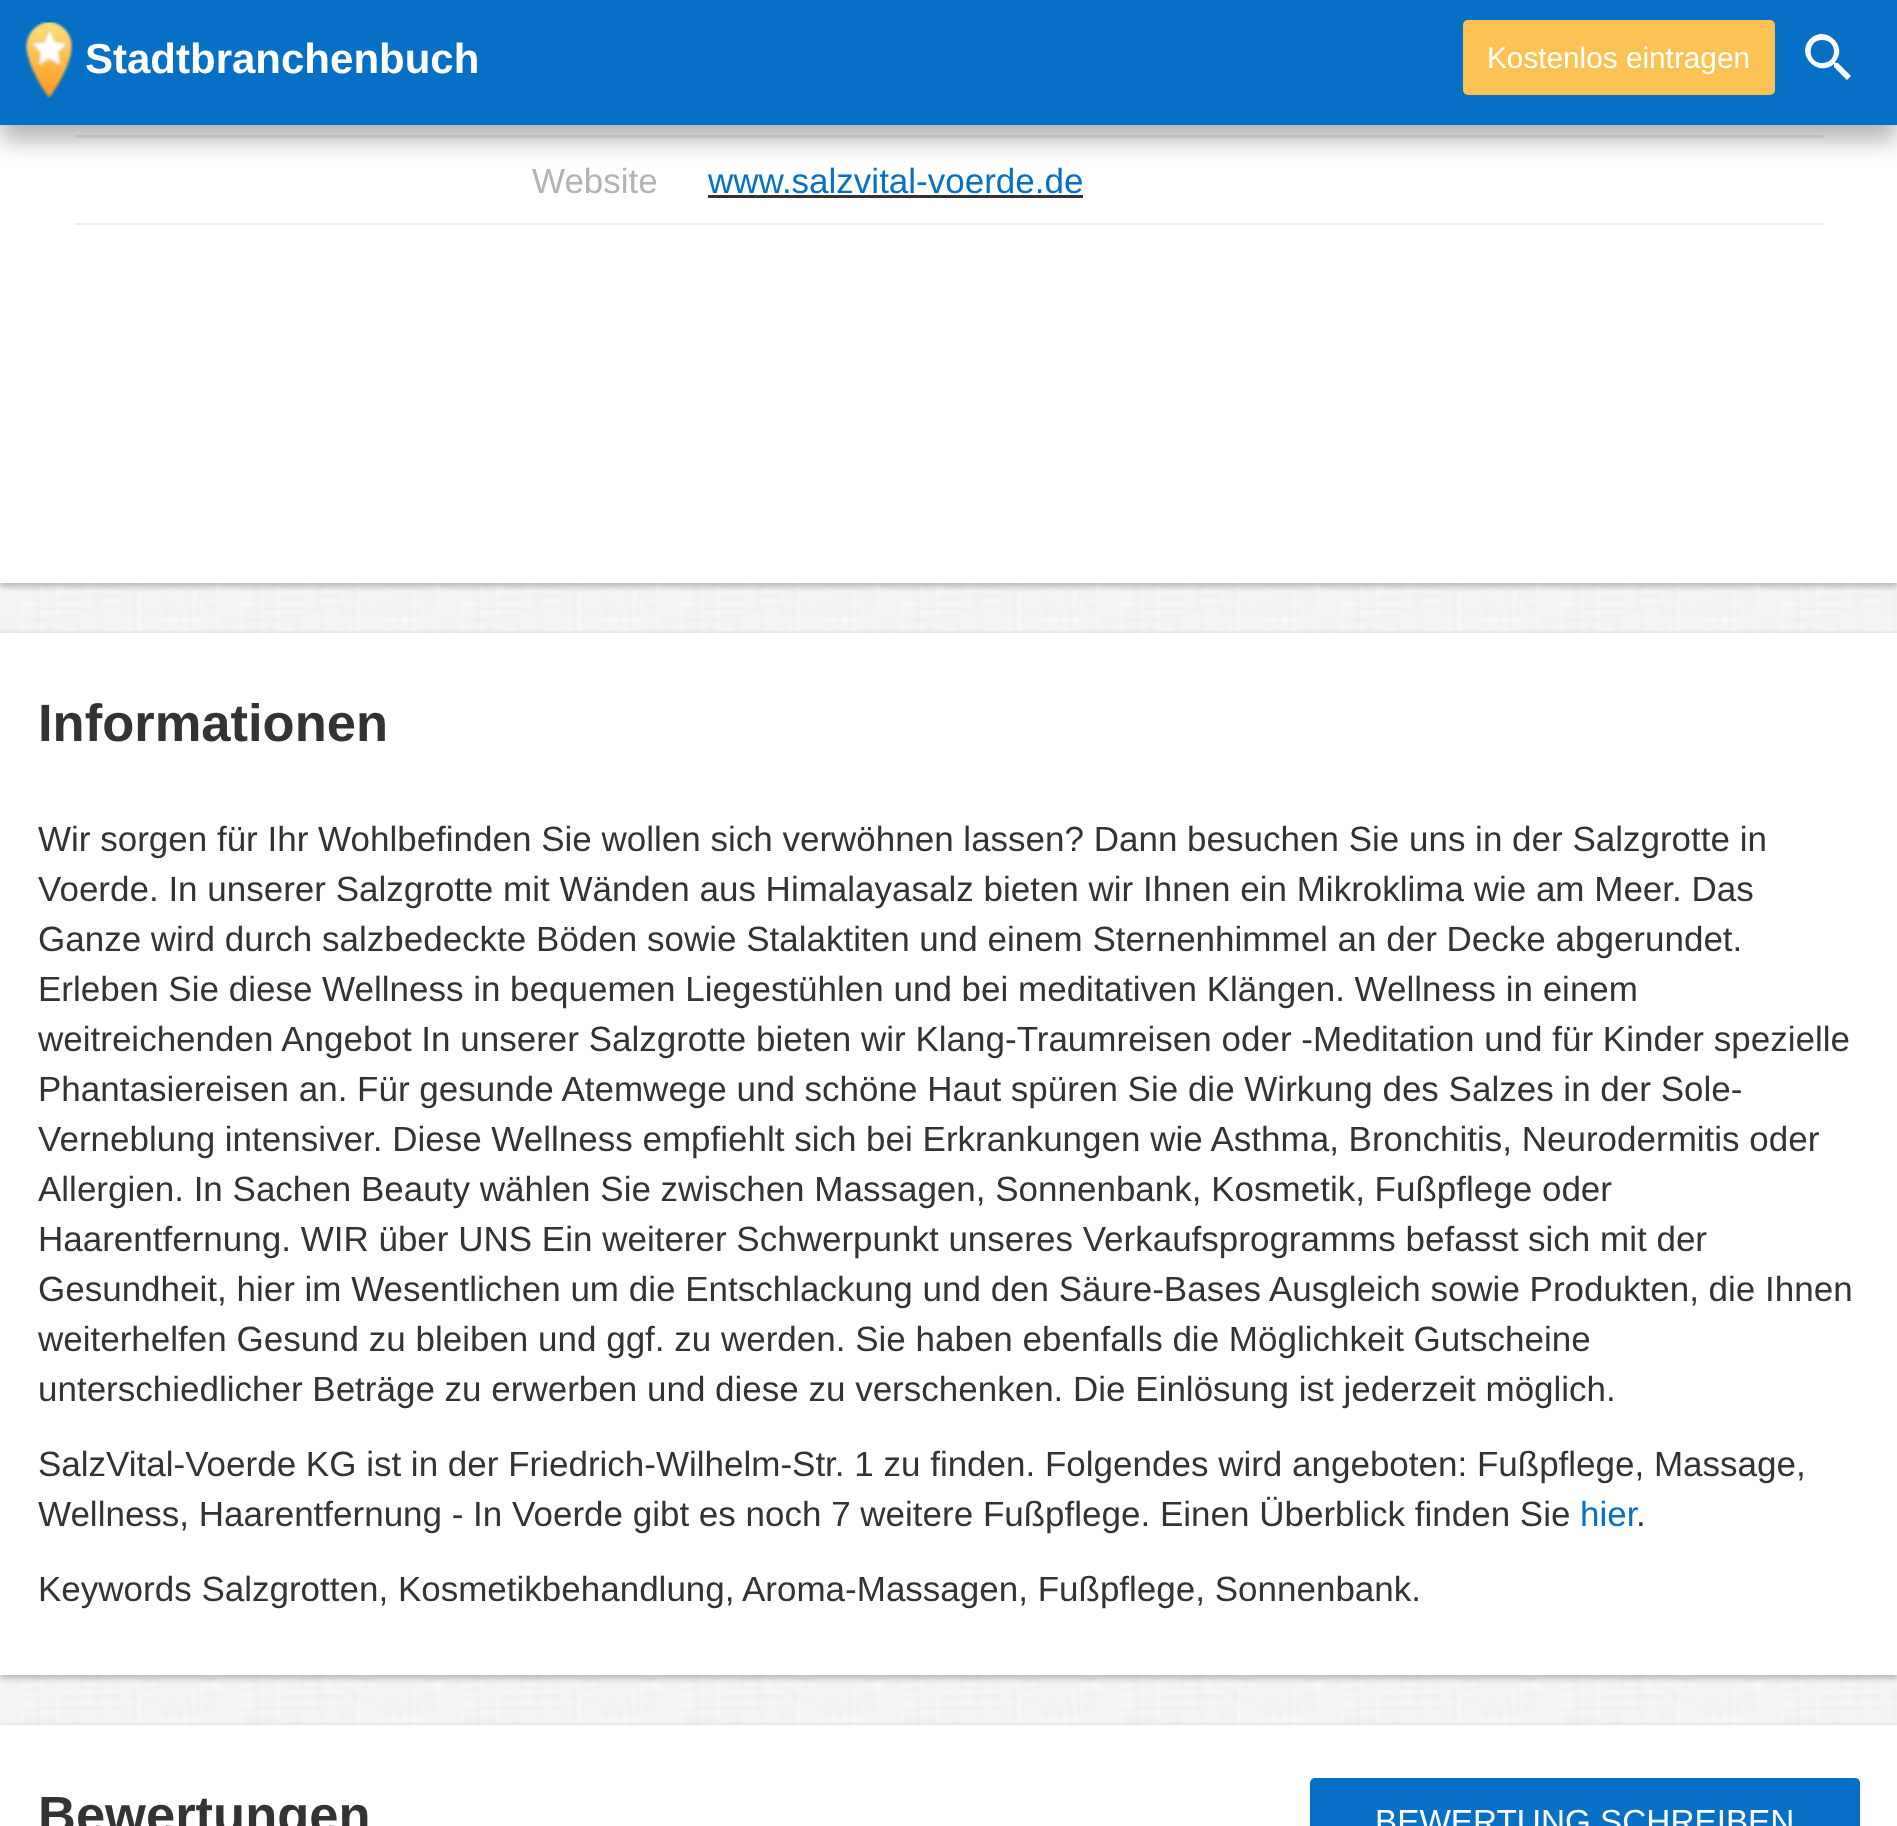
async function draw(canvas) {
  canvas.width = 1897
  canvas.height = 1826
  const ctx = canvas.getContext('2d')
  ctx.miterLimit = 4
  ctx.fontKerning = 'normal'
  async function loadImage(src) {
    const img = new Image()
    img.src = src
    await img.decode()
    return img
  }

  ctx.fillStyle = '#fff'
  ctx.fillRect(0, 0, 1897, 1826)
  ctx.drawImage(await loadImage('image0.png'), 0, 583, 1897, 1142)
  ctx.fillStyle = '#0000001f'
  ctx.filter = 'blur(2.5px)'
  ctx.beginPath()
  ctx.rect(0, -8, 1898, 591)
  ctx.fill()
  ctx.filter = 'none'
  ctx.fillStyle = '#00000029'
  ctx.filter = 'blur(2.5px)'
  ctx.beginPath()
  ctx.rect(0, -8, 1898, 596)
  ctx.fill()
  ctx.filter = 'none'
  ctx.fillStyle = '#fff'
  ctx.fillRect(0, 125, 1897, 458)
  ctx.fillStyle = '#eee'
  ctx.fillRect(75, 135, 1748, 3)
  ctx.fillStyle = '#0000004d'
  ctx.filter = 'blur(12.5px)'
  ctx.beginPath()
  ctx.rect(0, 15, 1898, 125)
  ctx.fill()
  ctx.filter = 'none'
  ctx.fillStyle = '#0670c6'
  ctx.fillRect(0, 0, 1897, 125)
  ctx.drawImage(await loadImage('image1.png'), 25, 22, 48, 76)
  ctx.font = 'bold 42px Liberation Sans'
  ctx.fillStyle = '#fff'
  ctx.fillText('Stadtbranchenbuch', 85, 73)
  ctx.fillStyle = '#fcc354'
  ctx.beginPath()
  ctx.roundRect(1463, 20, 312, 75, 5)
  ctx.fill()
  ctx.font = '29.75px Liberation Sans'
  ctx.fillStyle = '#fff'
  ctx.fillText('Kostenlos eintragen', 1487, 68)
  ctx.beginPath()
  ctx.moveTo(1838, 63)
  ctx.lineTo(1836, 63)
  ctx.lineTo(1835, 62)
  ctx.bezierCurveTo(1849, 47, 1826, 24, 1810, 39)
  ctx.bezierCurveTo(1795, 55, 1818, 78, 1834, 64)
  ctx.lineTo(1834, 65)
  ctx.lineTo(1834, 67)
  ctx.lineTo(1847, 80)
  ctx.lineTo(1851, 76)
  ctx.closePath()
  ctx.moveTo(1822, 63)
  ctx.bezierCurveTo(1807, 63, 1807, 40, 1822, 40)
  ctx.bezierCurveTo(1838, 40, 1838, 63, 1822, 63)
  ctx.closePath()
  ctx.fill()
  ctx.fillStyle = '#eee'
  ctx.fillRect(75, 223, 1748, 2)
  ctx.font = '35px Liberation Sans'
  ctx.fillStyle = '#b3b3b3'
  ctx.fillText('Website', 532, 193)
  ctx.fillStyle = '#0670c6'
  ctx.fillText('www.salzvital-voerde.de', 708, 193)
  ctx.fillStyle = '#333'
  ctx.fillRect(708, 195, 375, 3)
  ctx.fillStyle = '#0000001f'
  ctx.filter = 'blur(2.5px)'
  ctx.beginPath()
  ctx.rect(0, 633, 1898, 1042)
  ctx.fill()
  ctx.filter = 'none'
  ctx.fillStyle = '#00000029'
  ctx.filter = 'blur(2.5px)'
  ctx.beginPath()
  ctx.rect(0, 638, 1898, 1042)
  ctx.fill()
  ctx.filter = 'none'
  ctx.fillStyle = '#fff'
  ctx.fillRect(0, 633, 1897, 1042)
  ctx.font = 'bold 52.5px Liberation Sans'
  ctx.fillStyle = '#333'
  ctx.fillText('Informationen', 38, 741)
  ctx.font = '35px Liberation Sans'
  ctx.fillText('Wir sorgen für Ihr Wohlbefinden Sie wollen sich verwöhnen lassen? Dann besuchen Sie uns in der Salzgrotte in', 38, 851)
  ctx.fillText('Voerde. In unserer Salzgrotte mit Wänden aus Himalayasalz bieten wir Ihnen ein Mikroklima wie am Meer. Das', 38, 901)
  ctx.fillText('Ganze wird durch salzbedeckte Böden sowie Stalaktiten und einem Sternenhimmel an der Decke abgerundet.', 38, 951)
  ctx.fillText('Erleben Sie diese Wellness in bequemen Liegestühlen und bei meditativen Klängen. Wellness in einem', 38, 1001)
  ctx.fillText('weitreichenden Angebot In unserer Salzgrotte bieten wir Klang-Traumreisen oder -Meditation und für Kinder spezielle', 38, 1051)
  ctx.fillText('Phantasiereisen an. Für gesunde Atemwege und schöne Haut spüren Sie die Wirkung des Salzes in der Sole-', 38, 1101)
  ctx.fillText('Verneblung intensiver. Diese Wellness empfiehlt sich bei Erkrankungen wie Asthma, Bronchitis, Neurodermitis oder', 38, 1151)
  ctx.fillText('Allergien. In Sachen Beauty wählen Sie zwischen Massagen, Sonnenbank, Kosmetik, Fußpflege oder', 38, 1201)
  ctx.fillText('Haarentfernung. WIR über UNS Ein weiterer Schwerpunkt unseres Verkaufsprogramms befasst sich mit der', 38, 1251)
  ctx.fillText('Gesundheit, hier im Wesentlichen um die Entschlackung und den Säure-Bases Ausgleich sowie Produkten, die Ihnen', 38, 1301)
  ctx.fillText('weiterhelfen Gesund zu bleiben und ggf. zu werden. Sie haben ebenfalls die Möglichkeit Gutscheine', 38, 1351)
  ctx.fillText('unterschiedlicher Beträge zu erwerben und diese zu verschenken. Die Einlösung ist jederzeit möglich.', 38, 1401)
  ctx.fillText('SalzVital-Voerde KG ist in der Friedrich-Wilhelm-Str. 1 zu finden. Folgendes wird angeboten: Fußpflege, Massage,', 38, 1476)
  ctx.fillText('Wellness, Haarentfernung - In Voerde gibt es noch 7 weitere Fußpflege. Einen Überblick finden Sie', 38, 1526)
  ctx.fillStyle = '#0670c6'
  ctx.fillText('hier', 1580, 1526)
  ctx.fillStyle = '#333'
  ctx.fillText('.', 1636, 1526)
  ctx.fillText('Keywords Salzgrotten, Kosmetikbehandlung,', 38, 1601)
  ctx.fillText('Aroma-Massagen, Fußpflege, Sonnenbank.', 742, 1601)
  ctx.fillStyle = '#0000001f'
  ctx.filter = 'blur(2.5px)'
  ctx.beginPath()
  ctx.rect(0, 1725, 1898, 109)
  ctx.fill()
  ctx.filter = 'none'
  ctx.fillStyle = '#fff'
  ctx.fillRect(0, 1725, 1897, 101)
  ctx.font = 'bold 52.5px Liberation Sans'
  ctx.fillStyle = '#333'
  ctx.fillText('Bewertungen', 38, 1833)
  ctx.fillStyle = '#0670c6'
  ctx.beginPath()
  ctx.roundRect(1310, 1778, 550, 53, 5)
  ctx.fill()
  ctx.font = '33.3px Liberation Sans'
  ctx.fillStyle = '#fff'
  ctx.fillText('BEWERTUNG SCHREIBEN', 1375, 1833)
}

draw(document.querySelector('canvas'))
